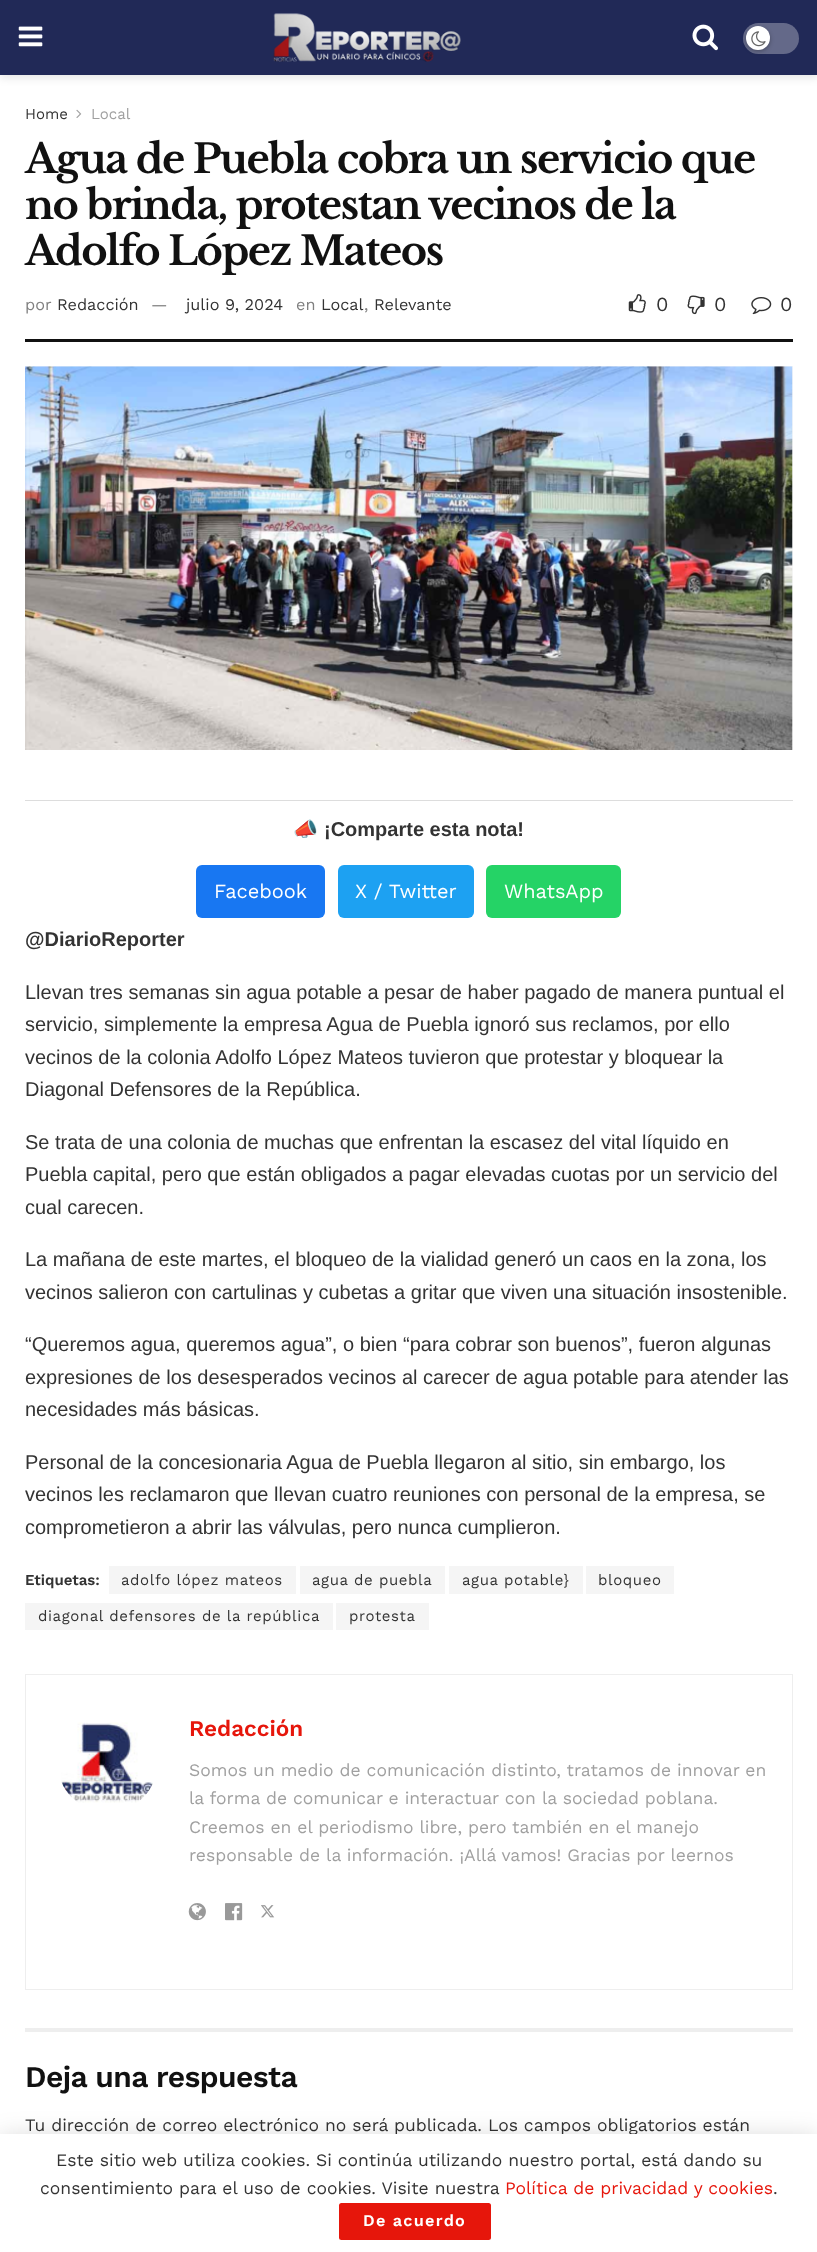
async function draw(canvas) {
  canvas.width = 817
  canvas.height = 2252
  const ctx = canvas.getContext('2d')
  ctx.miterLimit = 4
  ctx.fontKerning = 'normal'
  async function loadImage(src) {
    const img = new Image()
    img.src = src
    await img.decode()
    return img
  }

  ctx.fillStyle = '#fff'
  ctx.fillRect(0, 0, 817, 2252)
  ctx.fillStyle = '#0000001a'
  ctx.filter = 'blur(4px)'
  ctx.beginPath()
  ctx.rect(0, 3, 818, 75)
  ctx.fill()
  ctx.filter = 'none'
  ctx.fillStyle = '#212957'
  ctx.fillRect(0, 0, 817, 75)
  ctx.drawImage(await loadImage('image0.png'), 18, 26, 25, 21)
  ctx.drawImage(await loadImage('image1.png'), 273, 13, 188, 49)
  ctx.drawImage(await loadImage('image2.png'), 692, 24, 26, 27)
  ctx.fillStyle = '#646989'
  ctx.beginPath()
  ctx.roundRect(743, 23, 56, 31, 15.5)
  ctx.fill()
  ctx.fillStyle = '#0000004d'
  ctx.filter = 'blur(2px)'
  ctx.beginPath()
  ctx.roundRect(746, 28, 24, 23, 11.5)
  ctx.fill()
  ctx.filter = 'none'
  ctx.fillStyle = '#fff'
  ctx.beginPath()
  ctx.arc(758, 38, 12, 0, 2 * Math.PI)
  ctx.fill()
  ctx.drawImage(await loadImage('image3.png'), 751, 31, 15, 16)
  ctx.font = '15px Work Sans'
  ctx.fillStyle = '#333'
  ctx.fillText('Home', 25, 119)
  ctx.drawImage(await loadImage('image4.png'), 76, 109, 6, 9)
  ctx.fillStyle = '#a0a0a0'
  ctx.fillText('Local', 91, 119)
  ctx.fillStyle = '#111'
  ctx.fillRect(25, 339, 768, 3)
  ctx.letterSpacing = '-1.6px'
  ctx.font = 'bold 40px Libre Baskerville'
  ctx.fillText('Agua de Puebla cobra un servicio que', 25, 173)
  ctx.fillText('no brinda, protestan vecinos de la', 25, 219)
  ctx.fillText('Adolfo López Mateos', 25, 265)
  ctx.letterSpacing = '0px'
  ctx.font = '16.25px Work Sans'
  ctx.fillStyle = '#808080'
  ctx.fillText('por', 25, 310)
  ctx.fillStyle = '#333'
  ctx.fillText('Redacción', 57, 310)
  ctx.fillStyle = '#808080'
  ctx.fillText('—', 151, 310)
  ctx.fillStyle = '#333'
  ctx.fillText('julio 9, 2024', 186, 310)
  ctx.fillStyle = '#808080'
  ctx.fillText('en', 296, 310)
  ctx.fillStyle = '#333'
  ctx.fillText('Local', 321, 310)
  ctx.fillStyle = '#808080'
  ctx.fillText(',', 364, 310)
  ctx.fillStyle = '#333'
  ctx.fillText('Relevante', 374, 310)
  ctx.drawImage(await loadImage('image5.png'), 628, 294, 18, 19)
  ctx.font = '20px Work Sans'
  ctx.fillText('0', 656, 311)
  ctx.drawImage(await loadImage('image6.png'), 687, 295, 18, 20)
  ctx.fillText('0', 714, 311)
  ctx.drawImage(await loadImage('image7.png'), 751, 297, 21, 18)
  ctx.fillText('0', 780, 311)
  ctx.fillStyle = '#f7f7f7'
  ctx.fillRect(25, 366, 768, 384)
  ctx.drawImage(await loadImage('image8.png'), 25, 366, 768, 384)
  ctx.fillStyle = '#ddd'
  ctx.fillRect(25, 800, 768, 1)
  ctx.font = 'bold 20px Noto Color Emoji'
  ctx.fillStyle = '#333'
  ctx.fillText('📣', 293, 836)
  ctx.font = 'bold 20px Liberation Sans'
  ctx.fillText('¡Comparte esta nota!', 324, 836)
  ctx.fillStyle = '#1877f2'
  ctx.beginPath()
  ctx.roundRect(196, 865, 129, 53, 6)
  ctx.fill()
  ctx.font = '20px Work Sans'
  ctx.fillStyle = '#fff'
  ctx.fillText('Facebook', 214, 898)
  ctx.fillStyle = '#1da1f2'
  ctx.beginPath()
  ctx.roundRect(338, 865, 136, 53, 6)
  ctx.fill()
  ctx.fillStyle = '#fff'
  ctx.fillText('X / Twitter', 355, 898)
  ctx.fillStyle = '#25d366'
  ctx.beginPath()
  ctx.roundRect(486, 865, 135, 53, 6)
  ctx.fill()
  ctx.fillStyle = '#fff'
  ctx.fillText('WhatsApp', 504, 898)
  ctx.font = 'bold 20px Liberation Sans'
  ctx.fillStyle = '#333'
  ctx.fillText('@DiarioReporter', 25, 946)
  ctx.font = '20px Liberation Sans'
  ctx.fillText('Llevan tres semanas sin agua potable a pesar de haber pagado de manera puntual el', 25, 999)
  ctx.fillText('servicio, simplemente la empresa Agua de Puebla ignoró sus reclamos, por ello', 25, 1031)
  ctx.fillText('vecinos de la colonia Adolfo López Mateos tuvieron que protestar y bloquear la', 25, 1064)
  ctx.fillText('Diagonal Defensores de la República.', 25, 1096)
  ctx.fillText('Se trata de una colonia de muchas que enfrentan la escasez del vital líquido en', 25, 1149)
  ctx.fillText('Puebla capital, pero que están obligados a pagar elevadas cuotas por un servicio del', 25, 1181)
  ctx.fillText('cual carecen.', 25, 1214)
  ctx.fillText('La mañana de este martes, el bloqueo de la vialidad generó un caos en la zona, los', 25, 1266)
  ctx.fillText('vecinos salieron con cartulinas y cubetas a gritar que viven una situación insostenible.', 25, 1299)
  ctx.fillText('“Queremos agua, queremos agua”, o bien “para cobrar son buenos”, fueron algunas', 25, 1351)
  ctx.fillText('expresiones de los desesperados vecinos al carecer de agua potable para atender las', 25, 1384)
  ctx.fillText('necesidades más básicas.', 25, 1416)
  ctx.fillText('Personal de la concesionaria Agua de Puebla llegaron al sitio, sin embargo, los', 25, 1469)
  ctx.fillText('vecinos les reclamaron que llevan cuatro reuniones con personal de la empresa, se', 25, 1501)
  ctx.fillText('comprometieron a abrir las válvulas, pero nunca cumplieron.', 25, 1534)
  ctx.font = '600 15px Work Sans'
  ctx.fillText('Etiquetas:', 25, 1585)
  ctx.fillStyle = '#f5f5f5'
  ctx.fillRect(109, 1566, 187, 28)
  ctx.letterSpacing = '0.6px'
  ctx.font = '15px Work Sans'
  ctx.fillStyle = '#333'
  ctx.fillText('adolfo lópez mateos', 121, 1585)
  ctx.fillStyle = '#f5f5f5'
  ctx.fillRect(300, 1566, 145, 28)
  ctx.fillStyle = '#333'
  ctx.fillText('agua de puebla', 312, 1585)
  ctx.fillStyle = '#f5f5f5'
  ctx.fillRect(449, 1566, 134, 28)
  ctx.fillStyle = '#333'
  ctx.fillText('agua potable}', 462, 1585)
  ctx.fillStyle = '#f5f5f5'
  ctx.fillRect(586, 1566, 88, 28)
  ctx.fillStyle = '#333'
  ctx.fillText('bloqueo', 598, 1585)
  ctx.fillStyle = '#f5f5f5'
  ctx.fillRect(25, 1603, 308, 27)
  ctx.fillStyle = '#333'
  ctx.fillText('diagonal defensores de la república', 38, 1621)
  ctx.fillStyle = '#f5f5f5'
  ctx.fillRect(336, 1603, 93, 27)
  ctx.fillStyle = '#333'
  ctx.fillText('protesta', 349, 1621)
  ctx.strokeStyle = '#eee'
  ctx.strokeRect(25.5, 1674.5, 767, 315)
  ctx.drawImage(await loadImage('image9.png'), 61, 1722, 92, 81)
  ctx.letterSpacing = '0px'
  ctx.font = '600 22.5px Work Sans'
  ctx.fillStyle = '#e6160b'
  ctx.fillText('Redacción', 189, 1736)
  ctx.font = '17.5px Work Sans'
  ctx.fillStyle = '#a0a0a0'
  ctx.fillText('Somos un medio de comunicación distinto, tratamos de innovar en', 189, 1776)
  ctx.fillText('la forma de comunicar e interactuar con la sociedad poblana.', 189, 1804)
  ctx.fillText('Creemos en el periodismo libre, pero también en el manejo', 189, 1833)
  ctx.fillText('responsable de la información. ¡Allá vamos! Gracias por leernos', 189, 1861)
  ctx.drawImage(await loadImage('image10.png'), 188, 1903, 18, 18)
  ctx.drawImage(await loadImage('image11.png'), 225, 1903, 18, 18)
  ctx.drawImage(await loadImage('image12.png'), 261, 1905, 14, 13)
  ctx.fillStyle = '#eee'
  ctx.fillRect(25, 2028, 768, 4)
  ctx.letterSpacing = '-0.6px'
  ctx.font = '600 30px Work Sans'
  ctx.fillStyle = '#111'
  ctx.fillText('Deja una respuesta', 25, 2087)
  ctx.letterSpacing = '0px'
  ctx.font = '17.5px Work Sans'
  ctx.fillStyle = '#333'
  ctx.fillText('Tu dirección de correo electrónico no será publicada. Los campos obligatorios están', 25, 2131)
  ctx.fillStyle = '#00000026'
  ctx.filter = 'blur(12.5px)'
  ctx.beginPath()
  ctx.rect(0, 2136, 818, 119)
  ctx.fill()
  ctx.filter = 'none'
  ctx.fillStyle = '#fff'
  ctx.fillRect(0, 2134, 817, 118)
  ctx.fillStyle = '#333'
  ctx.fillText('Este sitio web utiliza cookies. Si continúa utilizando nuestro portal, está dando su', 56, 2166)
  ctx.fillText('consentimiento para el uso de cookies. Visite nuestra', 40, 2194)
  ctx.fillStyle = '#e6160b'
  ctx.fillText('Política de privacidad y cookies', 505, 2194)
  ctx.fillStyle = '#333'
  ctx.fillText('.', 773, 2194)
  ctx.fillStyle = '#e6160b'
  ctx.beginPath()
  ctx.roundRect(339, 2203, 152, 37, 2.5)
  ctx.fill()
  ctx.letterSpacing = '1.25px'
  ctx.font = '600 16.25px Work Sans'
  ctx.fillStyle = '#fff'
  ctx.fillText('De acuerdo', 363, 2226)
}

draw(document.querySelector('canvas'))
